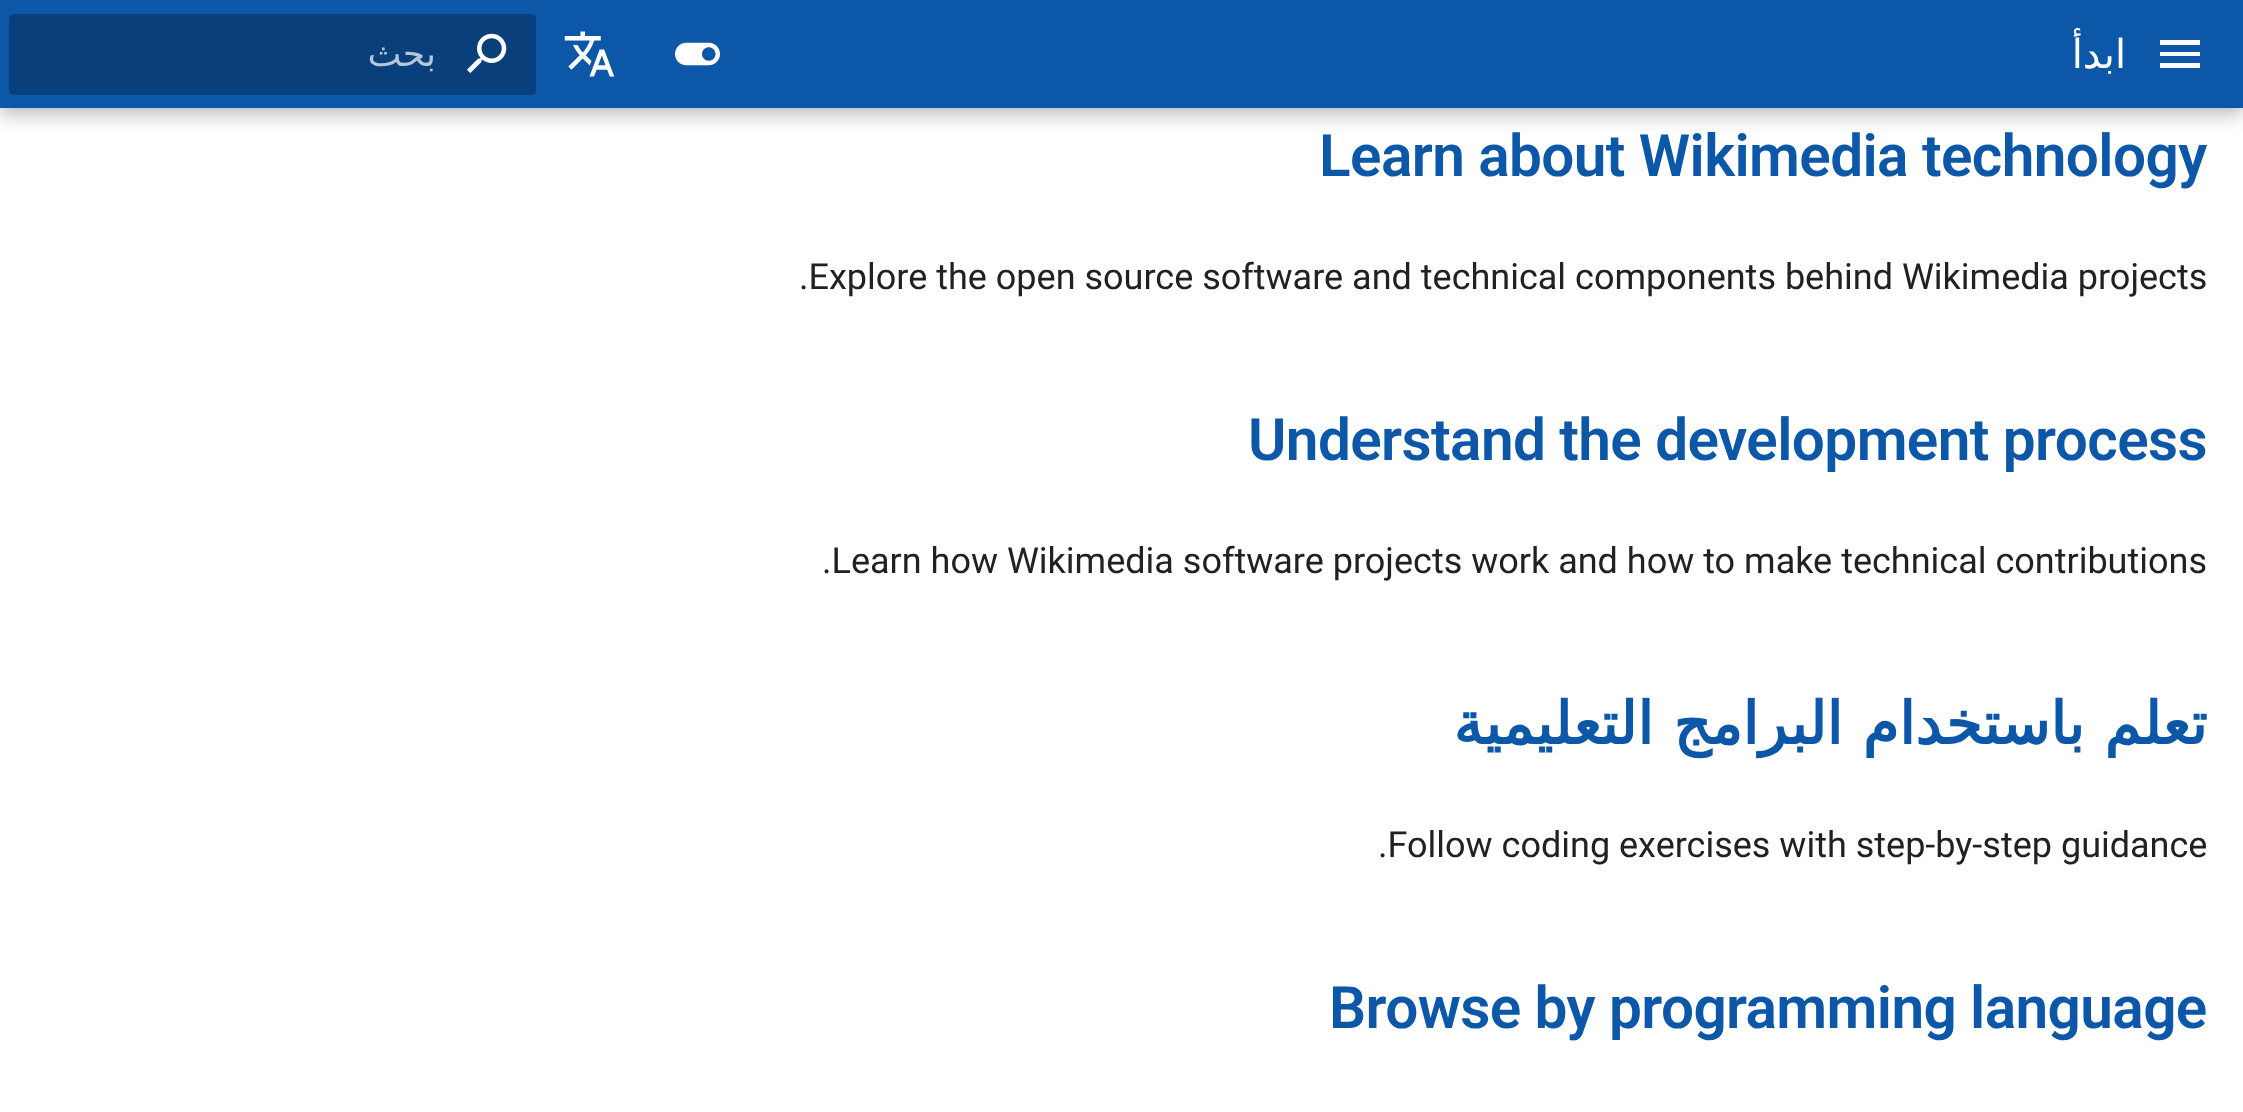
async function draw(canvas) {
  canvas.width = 2243
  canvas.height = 1112
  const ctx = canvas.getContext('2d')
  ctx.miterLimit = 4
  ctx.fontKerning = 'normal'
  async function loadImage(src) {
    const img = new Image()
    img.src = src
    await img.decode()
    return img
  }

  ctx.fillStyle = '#fff'
  ctx.fillRect(0, 0, 2243, 1112)
  ctx.fillStyle = '#00000033'
  ctx.filter = 'blur(9px)'
  ctx.beginPath()
  ctx.rect(0, 9, 2243, 108)
  ctx.fill()
  ctx.filter = 'none'
  ctx.fillStyle = '#0000001a'
  ctx.filter = 'blur(4.5px)'
  ctx.beginPath()
  ctx.rect(0, 0, 2243, 108)
  ctx.fill()
  ctx.filter = 'none'
  ctx.fillStyle = '#0c57a8'
  ctx.fillRect(0, 0, 2243, 108)
  ctx.fillStyle = '#09407c'
  ctx.beginPath()
  ctx.roundRect(9, 14, 527, 81, 5)
  ctx.fill()
  ctx.direction = 'rtl'
  ctx.font = '36px DejaVu Sans'
  ctx.fillStyle = '#b5c6d8'
  ctx.fillText('بحث', 436, 66)
  ctx.drawImage(await loadImage('image0.png'), 467, 33, 40, 40)
  ctx.drawImage(await loadImage('image1.png'), 564, 31, 51, 46)
  ctx.drawImage(await loadImage('image2.png'), 675, 42, 45, 24)
  ctx.font = '40px DejaVu Sans'
  ctx.fillStyle = '#fff'
  ctx.fillText('ابدأ', 2126, 68)
  ctx.beginPath()
  ctx.moveTo(2160, 40)
  ctx.lineTo(2200, 40)
  ctx.lineTo(2200, 45)
  ctx.lineTo(2160, 45)
  ctx.closePath()
  ctx.moveTo(2160, 52)
  ctx.lineTo(2200, 52)
  ctx.lineTo(2200, 56)
  ctx.lineTo(2160, 56)
  ctx.closePath()
  ctx.moveTo(2160, 63)
  ctx.lineTo(2200, 63)
  ctx.lineTo(2200, 68)
  ctx.lineTo(2160, 68)
  ctx.closePath()
  ctx.fill()
  ctx.letterSpacing = '-0.6px'
  ctx.direction = 'ltr'
  ctx.font = '600 58.5px Roboto'
  ctx.fillStyle = '#0c57a8'
  ctx.fillText('Learn about Wikimedia technology', 1319, 176)
  ctx.letterSpacing = '0px'
  ctx.font = '36px Roboto'
  ctx.fillStyle = '#212121'
  ctx.fillText('.Explore the open source software and technical components behind Wikimedia projects', 799, 289)
  ctx.letterSpacing = '-0.6px'
  ctx.font = '600 58.5px Roboto'
  ctx.fillStyle = '#0c57a8'
  ctx.fillText('Understand the development process', 1248, 460)
  ctx.letterSpacing = '0px'
  ctx.font = '36px Roboto'
  ctx.fillStyle = '#212121'
  ctx.fillText('.Learn how Wikimedia software projects work and how to make technical contributions', 822, 573)
  ctx.letterSpacing = '-0.6px'
  ctx.wordSpacing = '2px'
  ctx.direction = 'rtl'
  ctx.font = 'bold 58.5px DejaVu Sans'
  ctx.fillStyle = '#0c57a8'
  ctx.fillText('تعلم باستخدام البرامج التعليمية', 2207, 744)
  ctx.letterSpacing = '0px'
  ctx.wordSpacing = '0px'
  ctx.direction = 'ltr'
  ctx.font = '36px Roboto'
  ctx.fillStyle = '#212121'
  ctx.fillText('.Follow coding exercises with step-by-step guidance', 1378, 857)
  ctx.letterSpacing = '-0.6px'
  ctx.font = '600 58.5px Roboto'
  ctx.fillStyle = '#0c57a8'
  ctx.fillText('Browse by programming language', 1329, 1028)
}

draw(document.querySelector('canvas'))
